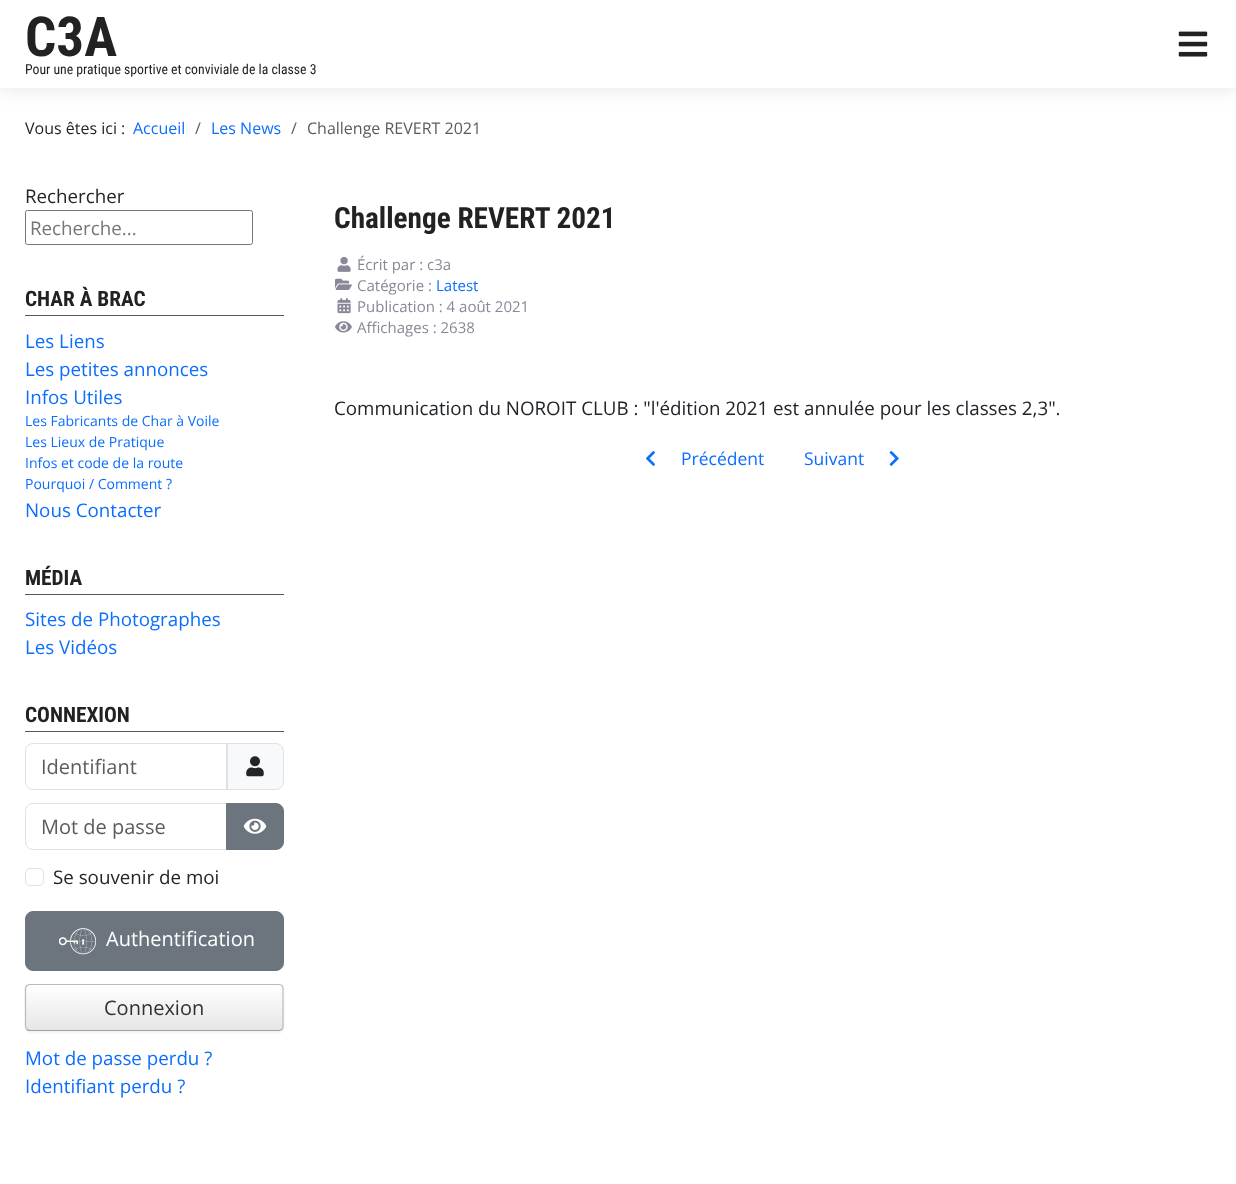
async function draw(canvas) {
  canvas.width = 1236
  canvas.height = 1184
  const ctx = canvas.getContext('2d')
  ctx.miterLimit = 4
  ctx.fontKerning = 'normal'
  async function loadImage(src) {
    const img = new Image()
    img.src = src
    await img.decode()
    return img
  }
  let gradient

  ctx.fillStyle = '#fff'
  ctx.fillRect(0, 0, 1236, 1184)
  ctx.save()
  ctx.beginPath()
  ctx.moveTo(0, 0)
  ctx.lineTo(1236, 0)
  ctx.lineTo(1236, 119)
  ctx.lineTo(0, 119)
  ctx.closePath()
  ctx.moveTo(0, 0)
  ctx.lineTo(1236, 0)
  ctx.lineTo(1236, 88)
  ctx.lineTo(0, 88)
  ctx.closePath()
  ctx.clip('evenodd')
  ctx.fillStyle = '#0000001a'
  ctx.filter = 'blur(9.5px)'
  ctx.beginPath()
  ctx.rect(0, 1, 1236, 88)
  ctx.fill()
  ctx.filter = 'none'
  ctx.restore()
  ctx.font = 'bold 55px Roboto Condensed'
  ctx.fillStyle = '#222'
  ctx.fillText('C3A', 25, 56)
  ctx.font = '13.75px Roboto Condensed'
  ctx.fillText('Pour une pratique sportive et conviviale de la classe 3', 25, 74)
  ctx.drawImage(await loadImage('image0.png'), 1178, 31, 30, 26)
  ctx.font = '16px Open Sans'
  ctx.fillStyle = '#212529'
  ctx.fillText('Vous êtes ici :', 25, 134)
  ctx.fillStyle = '#0d6efd'
  ctx.fillText('Accueil', 133, 134)
  ctx.fillStyle = '#595c5f'
  ctx.fillText('/', 195, 134)
  ctx.fillStyle = '#0d6efd'
  ctx.fillText('Les News', 211, 134)
  ctx.fillStyle = '#595c5f'
  ctx.fillText('/', 291, 134)
  ctx.fillText('Challenge REVERT 2021', 307, 134)
  ctx.font = '18.75px Open Sans'
  ctx.fillStyle = '#212529'
  ctx.fillText('Rechercher', 25, 203)
  ctx.beginPath()
  ctx.roundRect(25.5, 210.5, 227, 34, 2)
  ctx.strokeStyle = '#767676'
  ctx.stroke()
  ctx.fillStyle = '#757575'
  ctx.fillText('Recherche...', 30, 235)
  ctx.fillStyle = '#556'
  ctx.fillRect(25, 315, 259, 1)
  ctx.font = 'bold 21.25px Roboto Condensed'
  ctx.fillStyle = '#222'
  ctx.fillText('CHAR À BRAC', 25, 306)
  ctx.font = '18.75px Open Sans'
  ctx.fillStyle = '#0d6efd'
  ctx.fillText('Les Liens', 25, 348)
  ctx.fillText('Les petites annonces', 25, 376)
  ctx.fillText('Infos Utiles', 25, 404)
  ctx.font = '14px Open Sans'
  ctx.fillText('Les Fabricants de Char à Voile', 25, 426)
  ctx.fillText('Les Lieux de Pratique', 25, 447)
  ctx.fillText('Infos et code de la route', 25, 468)
  ctx.fillText('Pourquoi / Comment ?', 25, 489)
  ctx.font = '18.75px Open Sans'
  ctx.fillText('Nous Contacter', 25, 517)
  ctx.fillStyle = '#556'
  ctx.fillRect(25, 594, 259, 1)
  ctx.font = 'bold 21.25px Roboto Condensed'
  ctx.fillStyle = '#222'
  ctx.fillText('MÉDIA', 25, 585)
  ctx.font = '18.75px Open Sans'
  ctx.fillStyle = '#0d6efd'
  ctx.fillText('Sites de Photographes', 25, 626)
  ctx.fillText('Les Vidéos', 25, 654)
  ctx.fillStyle = '#556'
  ctx.fillRect(25, 731, 259, 1)
  ctx.font = 'bold 21.25px Roboto Condensed'
  ctx.fillStyle = '#222'
  ctx.fillText('CONNEXION', 25, 722)
  ctx.fillStyle = '#f8f9fa'
  ctx.beginPath()
  ctx.roundRect(226.5, 743.5, 57, 46, [0, 7.5, 7.5, 0])
  ctx.fill()
  ctx.strokeStyle = '#dee2e6'
  ctx.stroke()
  ctx.beginPath()
  ctx.roundRect(25.5, 743.5, 202, 46, [7.5, 0, 0, 7.5])
  ctx.stroke()
  ctx.font = '20px Open Sans'
  ctx.fillStyle = '#595c5f'
  ctx.fillText('Identifiant', 41, 774)
  ctx.drawImage(await loadImage('image1.png'), 246, 756, 18, 21)
  ctx.beginPath()
  ctx.roundRect(25.5, 803.5, 202, 46, [7.5, 0, 0, 7.5])
  ctx.stroke()
  ctx.fillText('Mot de passe', 41, 834)
  ctx.fillStyle = '#6c757d'
  ctx.beginPath()
  ctx.roundRect(226.5, 803.5, 57, 46, [0, 7.5, 7.5, 0])
  ctx.fill()
  ctx.strokeStyle = '#6c757d'
  ctx.stroke()
  ctx.drawImage(await loadImage('image2.png'), 243, 818, 24, 16)
  ctx.beginPath()
  ctx.roundRect(25.5, 868.5, 18, 17, 4.5)
  ctx.strokeStyle = '#dee2e6'
  ctx.stroke()
  ctx.font = '18.75px Open Sans'
  ctx.fillStyle = '#212529'
  ctx.fillText('Se souvenir de moi', 53, 884)
  ctx.fillStyle = '#6c757d'
  ctx.beginPath()
  ctx.roundRect(25.5, 911.5, 258, 59, 7.5)
  ctx.fill()
  ctx.strokeStyle = '#6c757d'
  ctx.stroke()
  ctx.drawImage(await loadImage('image3.png'), 59, 928, 37, 27)
  ctx.font = '20px Open Sans'
  ctx.fillStyle = '#fff'
  ctx.fillText('Authentification', 106, 946)
  ctx.fillStyle = '#0000000d'
  ctx.filter = 'blur(1px)'
  ctx.beginPath()
  ctx.roundRect(25, 985, 259, 48, 5)
  ctx.fill()
  ctx.filter = 'none'
  ctx.save()
  ctx.beginPath()
  ctx.roundRect(25, 984, 259, 47, 5)
  ctx.clip()
  gradient = ctx.createLinearGradient(154, 985, 154, 1030)
  gradient.addColorStop(0, '#fff')
  gradient.addColorStop(1, '#e6e6e6')
  ctx.fillStyle = gradient
  ctx.fillRect(25, 985, 259, 45)
  ctx.restore()
  ctx.fillStyle = '#ffffff33'
  ctx.beginPath()
  ctx.moveTo(30, 986)
  ctx.lineTo(279, 986)
  ctx.bezierCurveTo(281, 986, 282, 988, 282, 990)
  ctx.lineTo(282, 1029)
  ctx.bezierCurveTo(283, 1028, 283, 1027, 283, 1026)
  ctx.lineTo(283, 989)
  ctx.bezierCurveTo(283, 987, 281, 985, 279, 985)
  ctx.lineTo(30, 985)
  ctx.bezierCurveTo(28, 985, 26, 987, 26, 989)
  ctx.lineTo(26, 990)
  ctx.bezierCurveTo(26, 988, 28, 986, 30, 986)
  ctx.closePath()
  ctx.fill()
  ctx.beginPath()
  ctx.moveTo(282, 1029.5)
  ctx.bezierCurveTo(281, 1030, 280, 1030.5, 279, 1030.5)
  ctx.lineTo(30, 1030.5)
  ctx.bezierCurveTo(29, 1030.5, 27.5, 1030, 27, 1029.5)
  ctx.strokeStyle = '#a2a2a2'
  ctx.lineWidth = 1.2
  ctx.stroke()
  ctx.beginPath()
  ctx.moveTo(27, 1029.5)
  ctx.bezierCurveTo(26, 1028.5, 25.5, 1027.5, 25.5, 1026)
  ctx.lineTo(25.5, 989)
  ctx.bezierCurveTo(25.5, 987.5, 26, 986.5, 27, 985.5)
  ctx.bezierCurveTo(27.5, 985, 29, 984.5, 30, 984.5)
  ctx.lineTo(279, 984.5)
  ctx.bezierCurveTo(280, 984.5, 281, 985, 282, 985.5)
  ctx.bezierCurveTo(282.5, 986.5, 283, 987.5, 283, 989)
  ctx.lineTo(283, 1026)
  ctx.bezierCurveTo(283, 1027.5, 282.5, 1028.5, 282, 1029.5)
  ctx.strokeStyle = '#bbb'
  ctx.stroke()
  ctx.fillStyle = '#333'
  ctx.fillText('Connexion', 104, 1015)
  ctx.font = '18.75px Open Sans'
  ctx.fillStyle = '#0d6efd'
  ctx.fillText('Mot de passe perdu ?', 25, 1065)
  ctx.fillText('Identifiant perdu ?', 25, 1093)
  ctx.font = 'bold 29.25px Roboto Condensed'
  ctx.fillStyle = '#222'
  ctx.fillText('Challenge REVERT 2021', 334, 228)
  ctx.drawImage(await loadImage('image4.png'), 337, 256, 14, 16)
  ctx.font = '15px Open Sans'
  ctx.fillStyle = '#889'
  ctx.fillText('Écrit par : c3a', 357, 270)
  ctx.drawImage(await loadImage('image5.png'), 335, 278, 17, 12)
  ctx.fillText('Catégorie :', 357, 291)
  ctx.fillStyle = '#0d6efd'
  ctx.fillText('Latest', 436, 291)
  ctx.drawImage(await loadImage('image6.png'), 337, 298, 14, 16)
  ctx.fillStyle = '#889'
  ctx.fillText('Publication : 4 août 2021', 357, 312)
  ctx.drawImage(await loadImage('image7.png'), 335, 321, 17, 12)
  ctx.fillText('Affichages : 2638', 357, 333)
  ctx.font = '18.75px Open Sans'
  ctx.fillStyle = '#212529'
  ctx.fillText('Communication du NOROIT CLUB : "l\'édition 2021 est annulée pour les classes 2,3".', 334, 415)
  ctx.drawImage(await loadImage('image8.png'), 646, 451, 9, 15)
  ctx.font = '17.5px Open Sans'
  ctx.fillStyle = '#0d6efd'
  ctx.fillText('Précédent', 681, 465)
  ctx.fillText('Suivant', 804, 465)
  ctx.drawImage(await loadImage('image9.png'), 889, 451, 10, 15)
}

draw(document.querySelector('canvas'))
